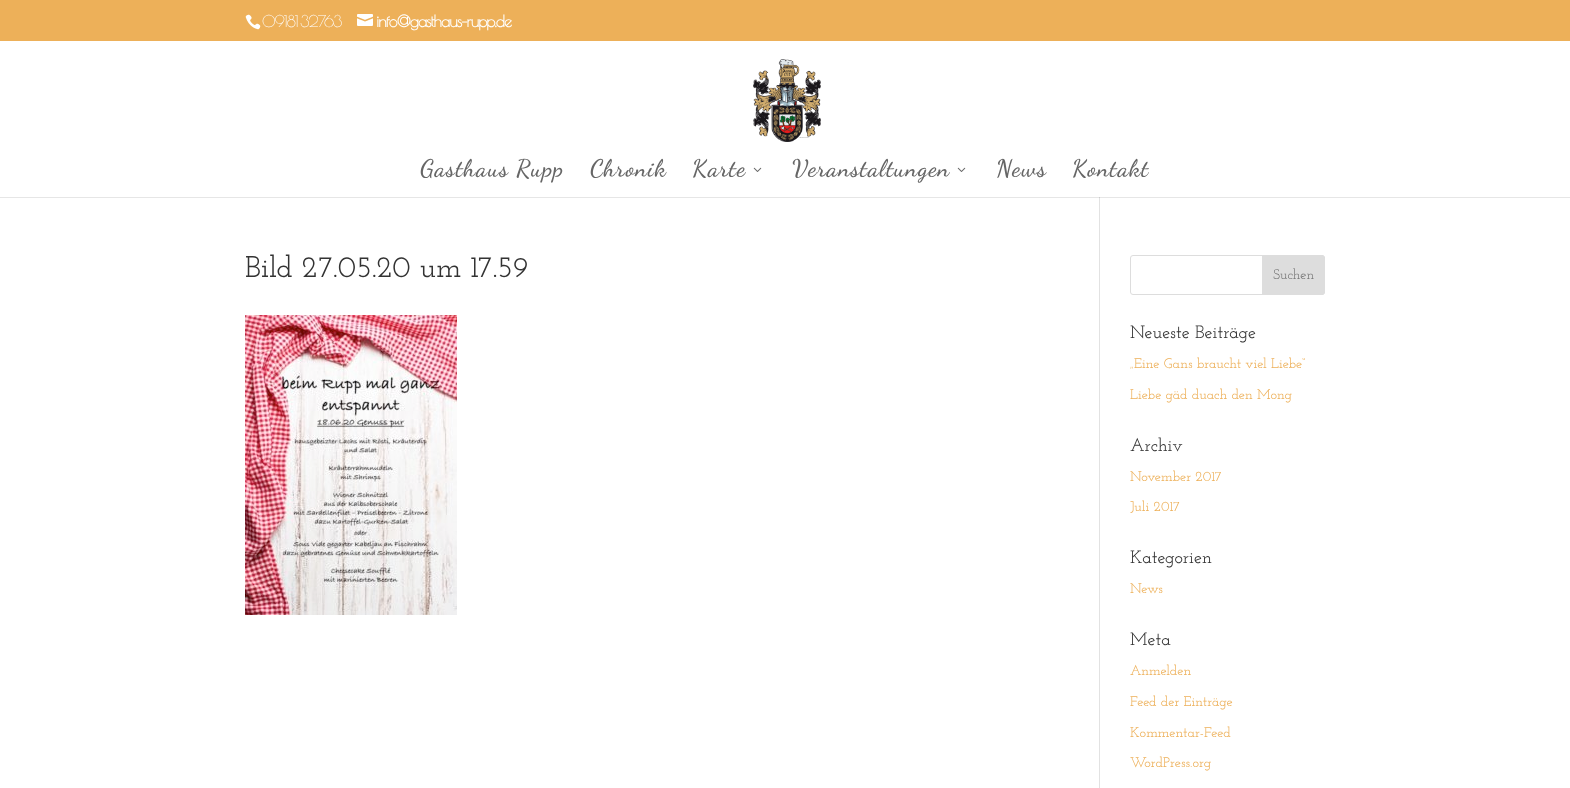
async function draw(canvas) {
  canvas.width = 1570
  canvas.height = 788
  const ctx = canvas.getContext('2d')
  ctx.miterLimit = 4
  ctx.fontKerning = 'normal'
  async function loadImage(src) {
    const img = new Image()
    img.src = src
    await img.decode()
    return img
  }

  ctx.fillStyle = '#fff'
  ctx.fillRect(0, 0, 1570, 788)
  ctx.fillStyle = '#e6e6e6'
  ctx.fillRect(0, 197, 1570, 1)
  ctx.fillStyle = '#edb059'
  ctx.fillRect(0, 0, 1570, 41)
  ctx.drawImage(await loadImage('image0.png'), 245, 14, 16, 16)
  ctx.letterSpacing = '-1px'
  ctx.font = '16px Poiret One'
  ctx.fillStyle = '#fff'
  ctx.fillText('09181 32763', 262, 27)
  ctx.drawImage(await loadImage('image1.png'), 357, 14, 16, 12)
  ctx.font = 'bold 16px Poiret One'
  ctx.fillText('info@gasthaus-rupp.de', 376, 27)
  ctx.drawImage(await loadImage('image2.png'), 753, 59, 68, 83)
  ctx.letterSpacing = '1px'
  ctx.font = '600 24px Dancing Script'
  ctx.fillStyle = '#666'
  ctx.fillText('Gasthaus Rupp', 420, 176)
  ctx.fillText('Chronik', 590, 176)
  ctx.fillText('Karte', 692, 176)
  ctx.drawImage(await loadImage('image3.png'), 753, 167, 9, 5)
  ctx.fillText('Veranstaltungen', 792, 176)
  ctx.drawImage(await loadImage('image3.png'), 957, 167, 9, 5)
  ctx.fillText('News', 996, 176)
  ctx.fillText('Kontakt', 1072, 176)
  ctx.fillStyle = '#e2e2e2'
  ctx.fillRect(1099, 197, 1, 591)
  ctx.fillStyle = '#cbcbcb'
  ctx.fillRect(1099, 197, 1, 1)
  ctx.letterSpacing = '0px'
  ctx.font = '500 30px Josefin Slab'
  ctx.fillStyle = '#333'
  ctx.fillText('Bild 27.05.20 um 17.59', 245, 277)
  ctx.drawImage(await loadImage('image4.png'), 245, 315, 212, 300)
  ctx.beginPath()
  ctx.roundRect(1130.5, 255.5, 194, 39, 2.5)
  ctx.strokeStyle = '#ddd'
  ctx.stroke()
  ctx.fillStyle = '#ddd'
  ctx.beginPath()
  ctx.roundRect(1262.5, 255.5, 62, 39, [0, 2.5, 2.5, 0])
  ctx.fill()
  ctx.stroke()
  ctx.font = '14px Josefin Slab'
  ctx.fillStyle = '#666'
  ctx.fillText('Suchen', 1273, 279)
  ctx.font = '500 18px Josefin Slab'
  ctx.fillStyle = '#333'
  ctx.fillText('Neueste Beiträge', 1130, 338)
  ctx.font = '500 14px Josefin Slab'
  ctx.fillStyle = '#edb059'
  ctx.fillText('„Eine Gans braucht viel Liebe“', 1130, 368)
  ctx.fillText('Liebe gäd duach den Mong', 1130, 399)
  ctx.font = '500 18px Josefin Slab'
  ctx.fillStyle = '#333'
  ctx.fillText('Archiv', 1130, 451)
  ctx.font = '500 14px Josefin Slab'
  ctx.fillStyle = '#edb059'
  ctx.fillText('November 2017', 1130, 481)
  ctx.fillText('Juli 2017', 1130, 511)
  ctx.font = '500 18px Josefin Slab'
  ctx.fillStyle = '#333'
  ctx.fillText('Kategorien', 1130, 563)
  ctx.font = '500 14px Josefin Slab'
  ctx.fillStyle = '#edb059'
  ctx.fillText('News', 1130, 593)
  ctx.font = '500 18px Josefin Slab'
  ctx.fillStyle = '#333'
  ctx.fillText('Meta', 1130, 645)
  ctx.font = '500 14px Josefin Slab'
  ctx.fillStyle = '#edb059'
  ctx.fillText('Anmelden', 1130, 675)
  ctx.fillText('Feed der Einträge', 1130, 706)
  ctx.fillText('Kommentar-Feed', 1130, 737)
  ctx.fillText('WordPress.org', 1130, 767)
}

draw(document.querySelector('canvas'))
